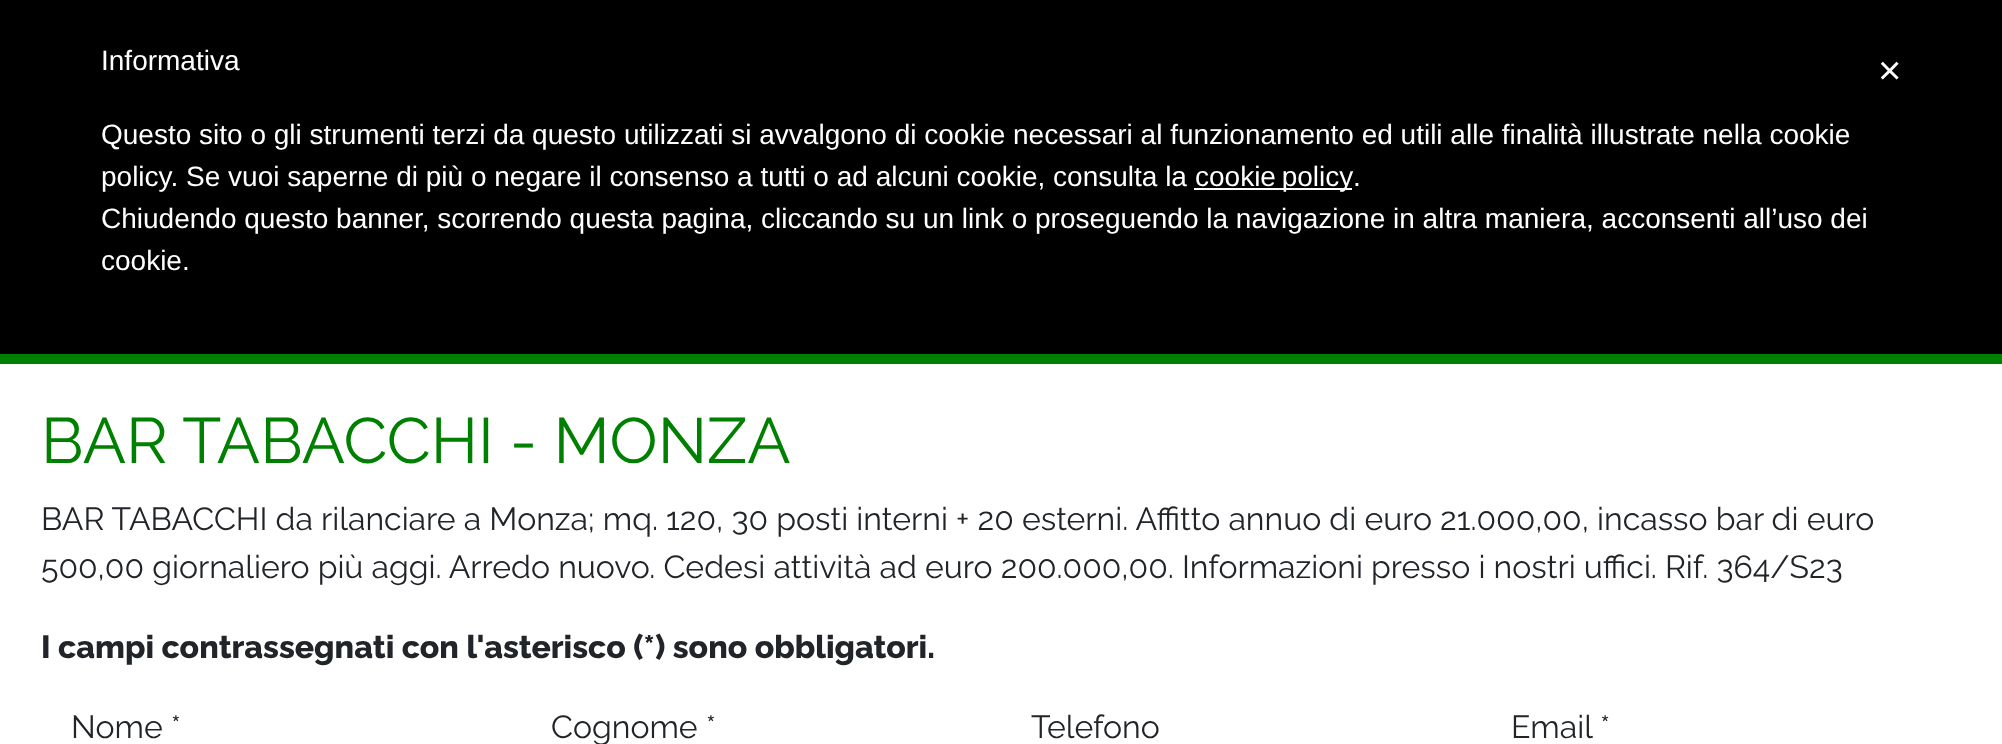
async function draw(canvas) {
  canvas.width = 2002
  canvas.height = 744
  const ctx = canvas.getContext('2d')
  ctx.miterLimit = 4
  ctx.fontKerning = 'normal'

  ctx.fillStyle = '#fff'
  ctx.fillRect(0, 0, 2002, 744)
  ctx.fillStyle = '#000'
  ctx.fillRect(0, 0, 2002, 354)
  ctx.font = '28px Liberation Sans'
  ctx.fillStyle = '#fff'
  ctx.fillText('Informativa', 101, 70)
  ctx.fillText('Questo sito o gli strumenti terzi da questo utilizzati si avvalgono di cookie necessari al funzionamento ed utili alle finalità illustrate nella cookie', 101, 144)
  ctx.fillText('policy. Se vuoi saperne di più o negare il consenso a tutti o ad alcuni cookie, consulta la', 101, 186)
  ctx.fillRect(1194, 188, 158, 2)
  ctx.wordSpacing = '-2px'
  ctx.fillText('cookie policy', 1195, 186)
  ctx.wordSpacing = '0px'
  ctx.fillText('.', 1353, 186)
  ctx.fillText('Chiudendo questo banner, scorrendo questa pagina, cliccando su un link o proseguendo la navigazione in altra maniera, acconsenti all’uso dei', 101, 228)
  ctx.fillText('cookie.', 101, 270)
  ctx.font = '40px Liberation Sans'
  ctx.fillText('×', 1878, 84)
  ctx.fillStyle = '#008000'
  ctx.fillRect(0, 354, 2002, 10)
  ctx.font = '64px Raleway'
  ctx.fillText('BAR TABACCHI - MONZA', 41, 463)
  ctx.font = '32px Raleway'
  ctx.fillStyle = '#212529'
  ctx.fillText('BAR TABACCHI da rilanciare a Monza; mq. 120, 30 posti interni + 20 esterni. Affitto annuo di euro 21.000,00, incasso bar di euro', 41, 530)
  ctx.fillText('500,00 giornaliero più aggi. Arredo nuovo. Cedesi attività ad euro 200.000,00. Informazioni presso i nostri uffici. Rif. 364/S23', 41, 578)
  ctx.font = '800 32px Raleway'
  ctx.fillText('I campi contrassegnati con l\'asterisco (*) sono obbligatori.', 41, 658)
  ctx.font = '32px Raleway'
  ctx.fillText('Nome *', 71, 738)
  ctx.fillText('Cognome *', 551, 738)
  ctx.fillText('Telefono', 1031, 738)
  ctx.fillText('Email *', 1511, 738)
}

draw(document.querySelector('canvas'))
